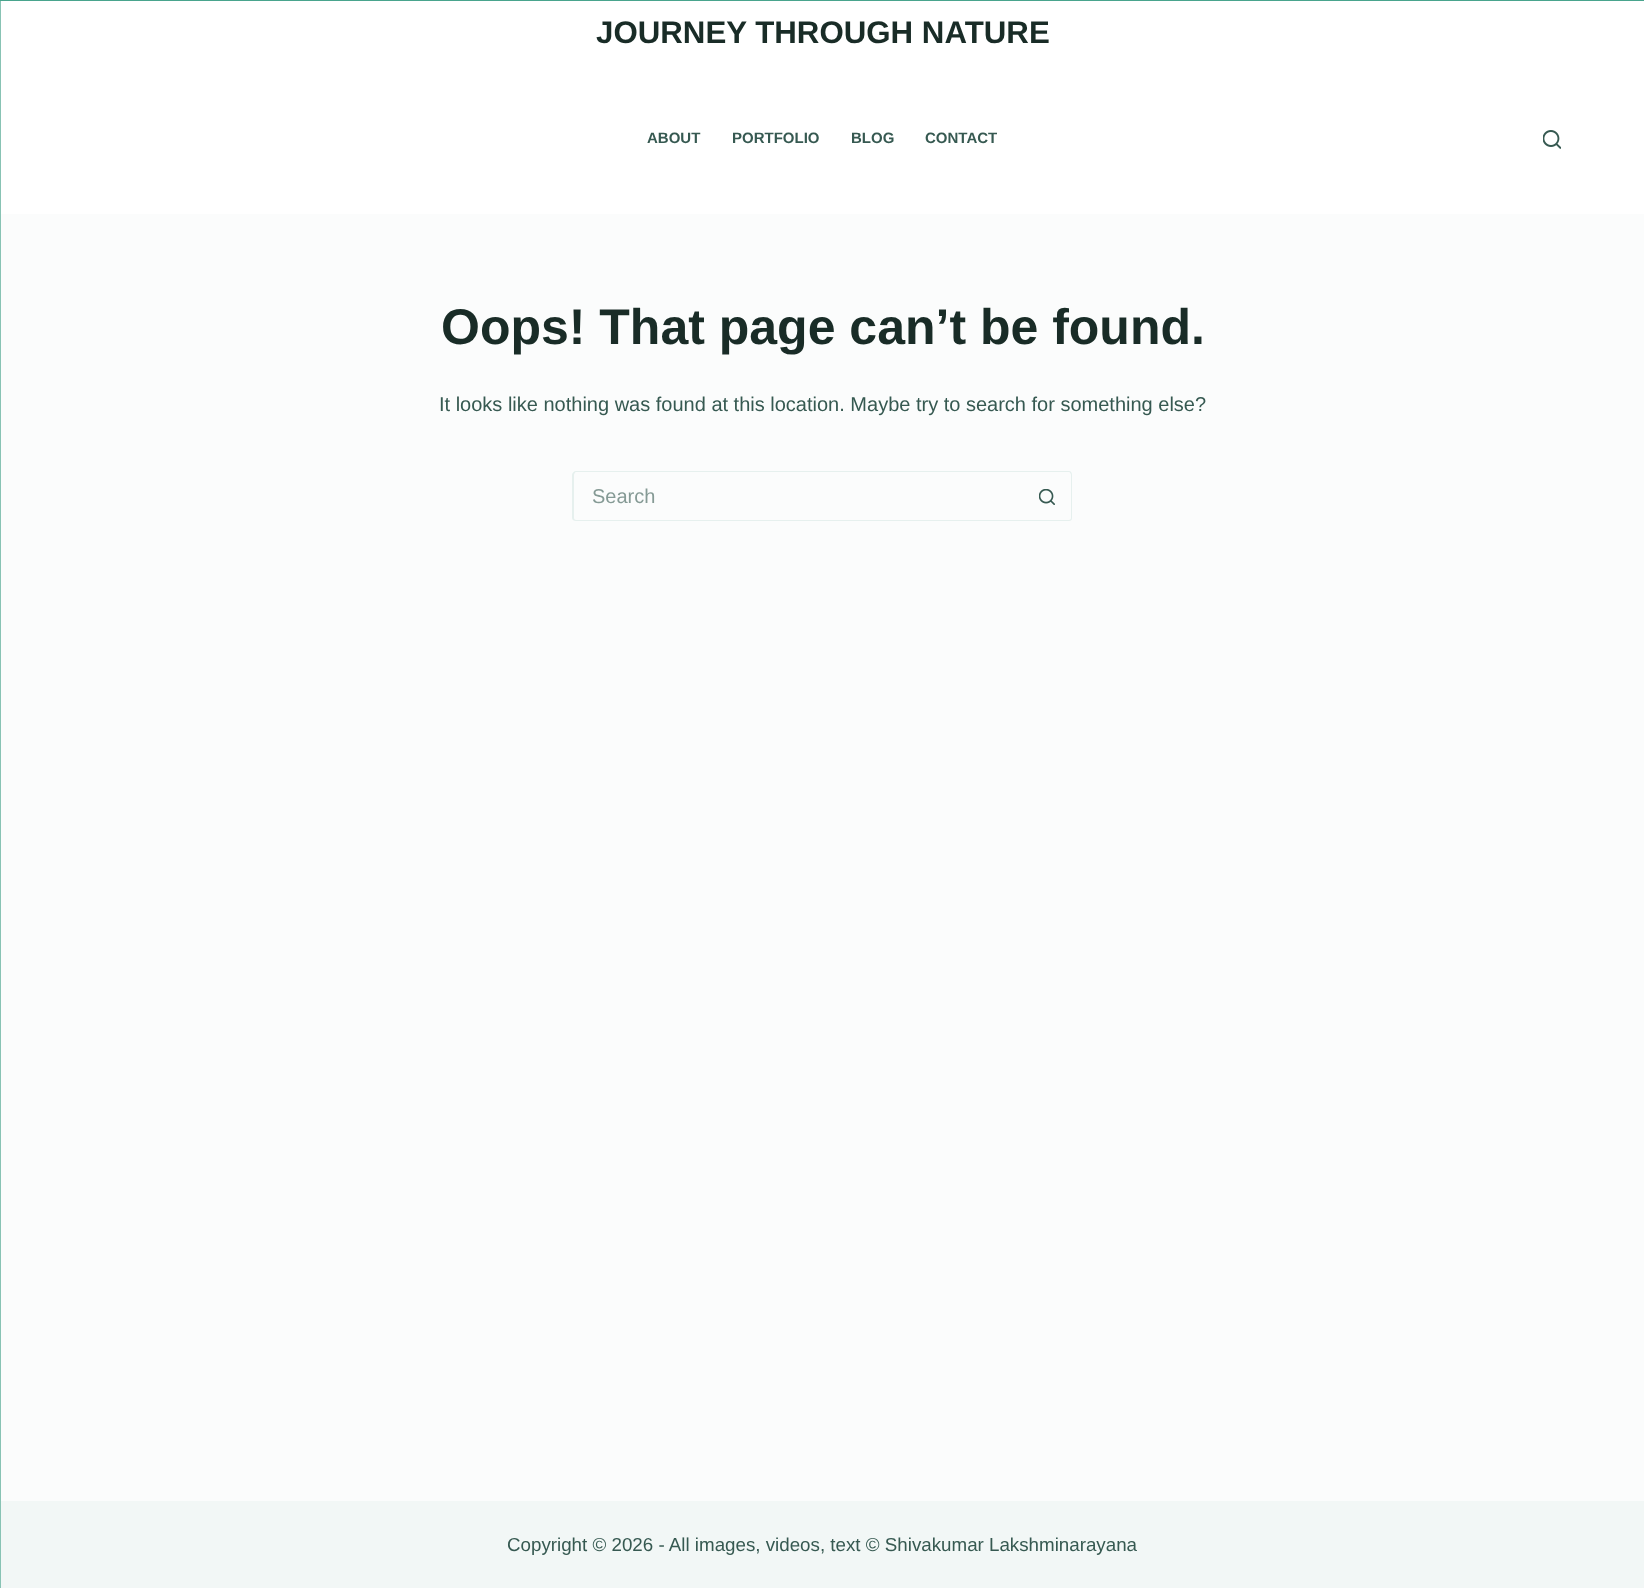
async function draw(canvas) {
  canvas.width = 1644
  canvas.height = 1588
  const ctx = canvas.getContext('2d')
  ctx.miterLimit = 4
  ctx.fontKerning = 'normal'
  async function loadImage(src) {
    const img = new Image()
    img.src = src
    await img.decode()
    return img
  }

  ctx.fillStyle = '#fbfcfc'
  ctx.fillRect(0, 0, 1644, 1588)
  ctx.strokeStyle = '#88c3b4'
  ctx.strokeRect(0.5, 0.5, 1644, 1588)
  ctx.fillStyle = '#49a48d'
  ctx.fillRect(0, 0, 1644, 1)
  ctx.fillStyle = '#fff'
  ctx.fillRect(1, 1, 1643, 213)
  ctx.font = 'bold 31.25px Liberation Sans'
  ctx.fillStyle = '#192c27'
  ctx.fillText('JOURNEY THROUGH NATURE', 596, 43)
  ctx.font = 'bold 15px Liberation Sans'
  ctx.fillStyle = '#365951'
  ctx.fillText('ABOUT', 647, 143)
  ctx.fillText('PORTFOLIO', 732, 143)
  ctx.fillText('BLOG', 851, 143)
  ctx.fillText('CONTACT', 925, 143)
  ctx.drawImage(await loadImage('image0.png'), 1543, 130, 18, 19)
  ctx.font = 'bold 50px Liberation Sans'
  ctx.fillStyle = '#192c27'
  ctx.fillText('Oops! That page can’t be found.', 441, 344)
  ctx.font = '20px Liberation Sans'
  ctx.fillStyle = '#365951'
  ctx.fillText('It looks like nothing was found at this location. Maybe try to search for something else?', 439, 411)
  ctx.fillStyle = '#e6f0ee'
  ctx.beginPath()
  ctx.moveTo(576, 471)
  ctx.lineTo(1022, 471)
  ctx.lineTo(1022, 521)
  ctx.lineTo(576, 521)
  ctx.bezierCurveTo(574, 521, 572, 520, 572, 518)
  ctx.lineTo(572, 475)
  ctx.bezierCurveTo(572, 473, 574, 471, 576, 471)
  ctx.closePath()
  ctx.moveTo(576, 472)
  ctx.lineTo(1022, 472)
  ctx.lineTo(1022, 520)
  ctx.lineTo(576, 520)
  ctx.bezierCurveTo(575, 520, 574, 519, 574, 518)
  ctx.lineTo(574, 475)
  ctx.bezierCurveTo(574, 474, 575, 472, 576, 472)
  ctx.closePath()
  ctx.fill('evenodd')
  ctx.fillStyle = '#859a95'
  ctx.fillText('Search', 592, 503)
  ctx.fillStyle = '#e6f0ee'
  ctx.beginPath()
  ctx.moveTo(1022, 471)
  ctx.lineTo(1069, 471)
  ctx.bezierCurveTo(1071, 471, 1072, 473, 1072, 475)
  ctx.lineTo(1072, 518)
  ctx.bezierCurveTo(1072, 520, 1071, 521, 1069, 521)
  ctx.lineTo(1022, 521)
  ctx.closePath()
  ctx.moveTo(1022, 472)
  ctx.lineTo(1069, 472)
  ctx.bezierCurveTo(1070, 472, 1071, 474, 1071, 475)
  ctx.lineTo(1071, 518)
  ctx.bezierCurveTo(1071, 519, 1070, 520, 1069, 520)
  ctx.lineTo(1022, 520)
  ctx.closePath()
  ctx.fill('evenodd')
  ctx.drawImage(await loadImage('image1.png'), 1039, 489, 16, 16)
  ctx.fillStyle = '#f2f7f6'
  ctx.fillRect(1, 1501, 1643, 87)
  ctx.font = '18.75px Liberation Sans'
  ctx.fillStyle = '#365951'
  ctx.fillText('Copyright © 2026 - All images, videos, text © Shivakumar Lakshminarayana', 507, 1551)
}

draw(document.querySelector('canvas'))
